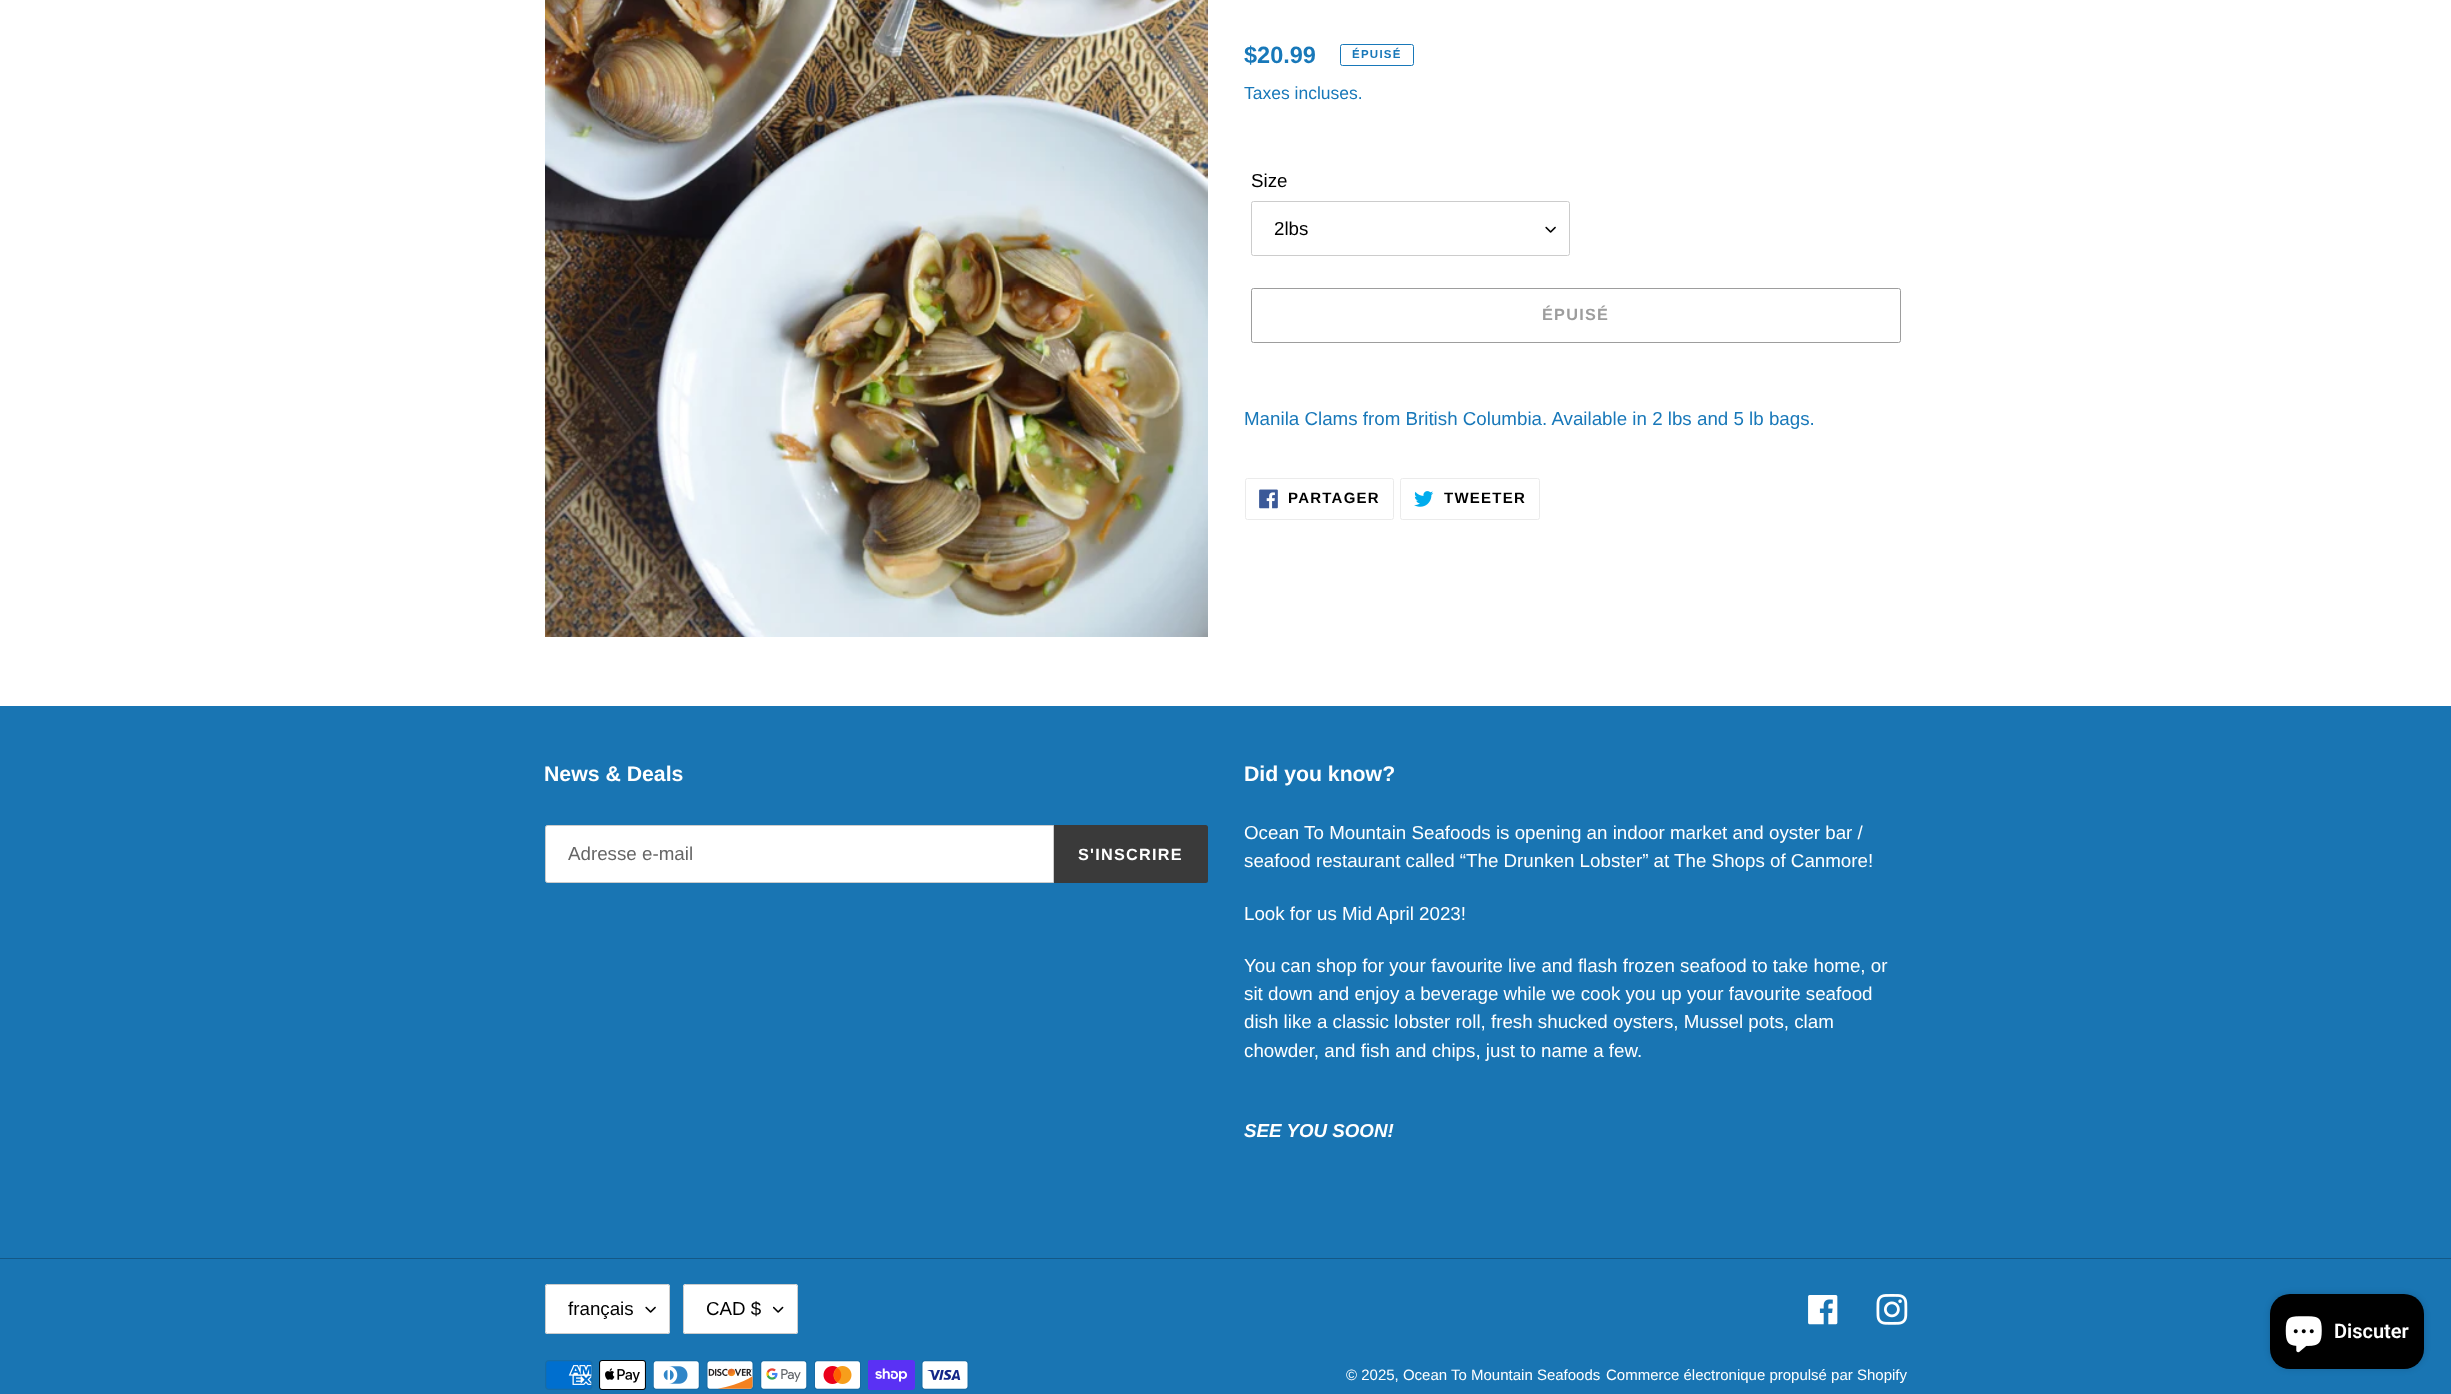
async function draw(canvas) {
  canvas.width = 2451
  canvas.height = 1394
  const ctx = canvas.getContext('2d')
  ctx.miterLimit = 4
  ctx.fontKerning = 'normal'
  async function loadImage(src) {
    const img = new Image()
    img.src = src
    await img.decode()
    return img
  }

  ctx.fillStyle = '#fff'
  ctx.fillRect(0, 0, 2451, 1394)
  ctx.drawImage(await loadImage('image0.png'), 545, 0, 663, 637)
  ctx.font = 'bold 23.5px Liberation Sans'
  ctx.fillStyle = '#1878b9'
  ctx.fillText('$20.99', 1244, 63)
  ctx.beginPath()
  ctx.roundRect(1340.5, 44.5, 73, 21, 2)
  ctx.strokeStyle = '#1878b9'
  ctx.stroke()
  ctx.letterSpacing = '1.25px'
  ctx.font = 'bold 11.5px Liberation Sans'
  ctx.fillText('ÉPUISÉ', 1352, 58)
  ctx.letterSpacing = '0px'
  ctx.font = '17.5px Liberation Sans'
  ctx.fillText('Taxes incluses.', 1244, 99)
  ctx.font = '18.75px Liberation Sans'
  ctx.fillStyle = '#000'
  ctx.fillText('Size', 1251, 187)
  ctx.drawImage(await loadImage('image1.png'), 1545, 226, 11, 7)
  ctx.beginPath()
  ctx.roundRect(1251.5, 201.5, 318, 54, 2)
  ctx.strokeStyle = '#ccc'
  ctx.stroke()
  ctx.fillText('2lbs', 1274, 235)
  ctx.beginPath()
  ctx.roundRect(1251.5, 288.5, 649, 54, 2)
  ctx.strokeStyle = '#9d9d9d'
  ctx.stroke()
  ctx.letterSpacing = '1.25px'
  ctx.font = 'bold 16.25px Liberation Sans'
  ctx.fillStyle = '#9d9d9d'
  ctx.fillText('ÉPUISÉ', 1542, 320)
  ctx.letterSpacing = '0px'
  ctx.font = '18.75px Liberation Sans'
  ctx.fillStyle = '#1878b9'
  ctx.fillText('Manila Clams from British Columbia. Available in 2 lbs and 5 lb bags.', 1244, 425)
  ctx.beginPath()
  ctx.roundRect(1245.5, 478.5, 148, 41, 2)
  ctx.strokeStyle = '#ebebeb'
  ctx.stroke()
  ctx.drawImage(await loadImage('image2.png'), 1259, 489, 19, 20)
  ctx.letterSpacing = '1.25px'
  ctx.font = 'bold 15px Liberation Sans'
  ctx.fillStyle = '#000'
  ctx.fillText('PARTAGER', 1288, 503)
  ctx.beginPath()
  ctx.roundRect(1400.5, 478.5, 139, 41, 2)
  ctx.stroke()
  ctx.drawImage(await loadImage('image3.png'), 1414, 491, 20, 16)
  ctx.fillText('TWEETER', 1444, 503)
  ctx.fillStyle = '#1975b3'
  ctx.fillRect(0, 706, 2451, 688)
  ctx.letterSpacing = '0px'
  ctx.font = 'bold 21.25px Liberation Sans'
  ctx.fillStyle = '#fff'
  ctx.fillText('News & Deals', 544, 781)
  ctx.beginPath()
  ctx.roundRect(545.5, 825.5, 508, 57, [2, 0, 0, 2])
  ctx.fill()
  ctx.strokeStyle = '#ccc'
  ctx.stroke()
  ctx.font = '18.75px Liberation Sans'
  ctx.fillStyle = '#666'
  ctx.fillText('Adresse e-mail', 568, 860)
  ctx.fillStyle = '#3a3a3a'
  ctx.beginPath()
  ctx.roundRect(1054, 825, 154, 58, [0, 2.5, 2.5, 0])
  ctx.fill()
  ctx.letterSpacing = '1.25px'
  ctx.font = 'bold 16.25px Liberation Sans'
  ctx.fillStyle = '#fff'
  ctx.fillText('S\'INSCRIRE', 1078, 860)
  ctx.letterSpacing = '0px'
  ctx.font = 'bold 21.25px Liberation Sans'
  ctx.fillText('Did you know?', 1244, 781)
  ctx.font = '18.75px Liberation Sans'
  ctx.fillText('Ocean To Mountain Seafoods is opening an indoor market and oyster bar /', 1244, 839)
  ctx.fillText('seafood restaurant called “The Drunken Lobster” at The Shops of Canmore!', 1244, 867)
  ctx.fillText('Look for us Mid April 2023!', 1244, 920)
  ctx.fillText('You can shop for your favourite live and flash frozen seafood to take home, or', 1244, 972)
  ctx.fillText('sit down and enjoy a beverage while we cook you up your favourite seafood', 1244, 1000)
  ctx.fillText('dish like a classic lobster roll, fresh shucked oysters, Mussel pots, clam', 1244, 1028)
  ctx.fillText('chowder, and fish and chips, just to name a few.', 1244, 1057)
  ctx.font = 'italic bold 18.75px Liberation Sans'
  ctx.fillText('SEE YOU SOON!', 1244, 1137)
  ctx.fillStyle = '#135886'
  ctx.fillRect(0, 1258, 2451, 1)
  ctx.fillStyle = '#fff'
  ctx.beginPath()
  ctx.roundRect(545, 1284, 125, 50, 2.5)
  ctx.fill()
  ctx.drawImage(await loadImage('image1.png'), 645, 1306, 11, 7)
  ctx.beginPath()
  ctx.roundRect(545.5, 1284.5, 124, 49, 2)
  ctx.stroke()
  ctx.font = '18.75px Liberation Sans'
  ctx.fillStyle = '#000'
  ctx.fillText('français', 568, 1315)
  ctx.fillStyle = '#fff'
  ctx.beginPath()
  ctx.roundRect(683, 1284, 115, 50, 2.5)
  ctx.fill()
  ctx.drawImage(await loadImage('image4.png'), 773, 1306, 11, 7)
  ctx.beginPath()
  ctx.roundRect(683.5, 1284.5, 114, 49, 2)
  ctx.stroke()
  ctx.fillStyle = '#000'
  ctx.fillText('CAD $', 706, 1315)
  ctx.drawImage(await loadImage('image5.png'), 1808, 1295, 30, 30)
  ctx.drawImage(await loadImage('image6.png'), 1876, 1294, 32, 31)
  ctx.drawImage(await loadImage('image7.png'), 545, 1360, 48, 30)
  ctx.drawImage(await loadImage('image8.png'), 599, 1360, 47, 30)
  ctx.drawImage(await loadImage('image9.png'), 653, 1360, 47, 30)
  ctx.drawImage(await loadImage('image10.png'), 706, 1360, 48, 30)
  ctx.drawImage(await loadImage('image11.png'), 760, 1360, 48, 30)
  ctx.drawImage(await loadImage('image12.png'), 814, 1360, 47, 30)
  ctx.drawImage(await loadImage('image13.png'), 868, 1360, 47, 30)
  ctx.drawImage(await loadImage('image14.png'), 921, 1360, 48, 30)
  ctx.font = '15px Liberation Sans'
  ctx.fillStyle = '#fff'
  ctx.fillText('© 2025, Ocean To Mountain Seafoods', 1346, 1380)
  ctx.fillText('Commerce électronique propulsé par Shopify', 1606, 1380)
  ctx.fillStyle = '#00000026'
  ctx.filter = 'blur(3px)'
  ctx.beginPath()
  ctx.roundRect(2270, 1294, 154, 75, 20)
  ctx.fill()
  ctx.filter = 'none'
  ctx.fillStyle = '#000'
  ctx.beginPath()
  ctx.roundRect(2270, 1294, 154, 75, 20)
  ctx.fill()
  ctx.drawImage(await loadImage('image15.png'), 2285, 1316, 37, 37)
  ctx.font = '600 20px Roboto'
  ctx.fillStyle = '#fff'
  ctx.fillText('Discuter', 2334, 1338)
}

draw(document.querySelector('canvas'))
